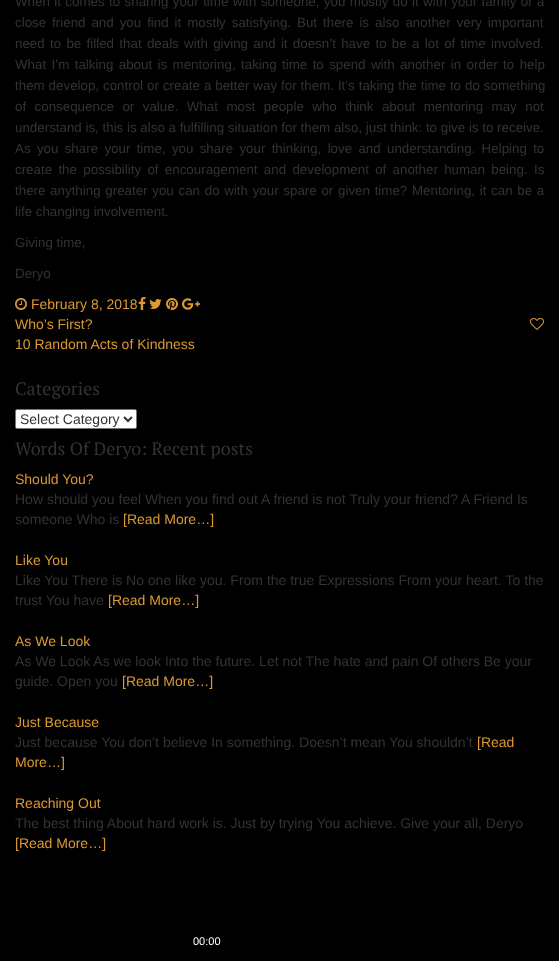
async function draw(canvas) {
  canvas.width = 559
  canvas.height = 961
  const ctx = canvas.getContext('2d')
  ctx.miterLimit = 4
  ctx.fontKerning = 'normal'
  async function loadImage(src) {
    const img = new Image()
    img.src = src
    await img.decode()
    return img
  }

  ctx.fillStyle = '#000'
  ctx.fillRect(0, 0, 559, 961)
  ctx.wordSpacing = '0.7px'
  ctx.font = '13.35px Liberation Sans'
  ctx.fillStyle = '#333'
  ctx.fillText('When it comes to sharing your time with someone, you mostly do it with your family or a', 15, 6)
  ctx.wordSpacing = '2.25px'
  ctx.fillText('close friend and you find it mostly satisfying. But there is also another very important', 15, 27)
  ctx.wordSpacing = '1.6px'
  ctx.fillText('need to be filled that deals with giving and it doesn’t have to be a lot of time involved.', 15, 48)
  ctx.wordSpacing = '1.7px'
  ctx.fillText('What I’m talking about is mentoring, taking time to spend with another in order to help', 15, 69)
  ctx.wordSpacing = '0.25px'
  ctx.fillText('them develop, control or create a better way for them. It’s taking the time to do something', 15, 90)
  ctx.wordSpacing = '4.75px'
  ctx.fillText('of consequence or value. What most people who think about mentoring may not', 15, 111)
  ctx.wordSpacing = '0px'
  ctx.fillText('understand is, this is also a fulfilling situation for them also, just think: to give is to receive.', 15, 132)
  ctx.wordSpacing = '2.6px'
  ctx.fillText('As you share your time, you share your thinking, love and understanding. Helping to', 15, 153)
  ctx.fillText('create the possibility of encouragement and development of another human being. Is', 15, 174)
  ctx.wordSpacing = '1px'
  ctx.fillText('there anything greater you can do with your spare or given time? Mentoring, it can be a', 15, 195)
  ctx.wordSpacing = '0px'
  ctx.fillText('life changing involvement.', 15, 216)
  ctx.fillText('Giving time,', 15, 247)
  ctx.fillText('Deryo', 15, 278)
  ctx.drawImage(await loadImage('image0.png'), 15, 298, 12, 12)
  ctx.font = '14px Liberation Sans'
  ctx.fillStyle = '#d93'
  ctx.fillText('February 8, 2018', 31, 309)
  ctx.drawImage(await loadImage('image1.png'), 138, 297, 8, 13)
  ctx.drawImage(await loadImage('image2.png'), 149, 299, 13, 10)
  ctx.drawImage(await loadImage('image3.png'), 166, 298, 12, 12)
  ctx.drawImage(await loadImage('image4.png'), 182, 298, 18, 12)
  ctx.drawImage(await loadImage('image5.png'), 530, 318, 14, 12)
  ctx.fillText('Who’s First?', 15, 329)
  ctx.fillText('10 Random Acts of Kindness', 15, 349)
  ctx.font = '18px PT Serif'
  ctx.fillStyle = '#333'
  ctx.fillText('Categories', 15, 395)
  ctx.fillStyle = '#fff'
  ctx.beginPath()
  ctx.roundRect(15.5, 409.5, 121, 19, 1.5)
  ctx.fill()
  ctx.strokeStyle = '#767676'
  ctx.stroke()
  ctx.beginPath()
  ctx.moveTo(124, 417)
  ctx.lineTo(128, 421)
  ctx.lineTo(132, 417)
  ctx.strokeStyle = '#333'
  ctx.lineWidth = 2
  ctx.stroke()
  ctx.font = '14px Liberation Sans'
  ctx.fillStyle = '#333'
  ctx.fillText('Select Category', 20, 424)
  ctx.font = '18px PT Serif'
  ctx.fillText('Words Of Deryo: Recent posts', 15, 455)
  ctx.font = '14px Liberation Sans'
  ctx.fillStyle = '#d93'
  ctx.fillText('Should You?', 15, 484)
  ctx.fillStyle = '#333'
  ctx.fillText('How should you feel When you find out A friend is not Truly your friend? A Friend Is', 15, 504)
  ctx.fillText('someone Who is', 15, 524)
  ctx.fillStyle = '#d93'
  ctx.fillText('[Read More…]', 123, 524)
  ctx.fillText('Like You', 15, 565)
  ctx.fillStyle = '#333'
  ctx.fillText('Like You There is No one like you. From the true Expressions From your heart. To the', 15, 585)
  ctx.fillText('trust You have', 15, 605)
  ctx.fillStyle = '#d93'
  ctx.fillText('[Read More…]', 108, 605)
  ctx.fillText('As We Look', 15, 646)
  ctx.fillStyle = '#333'
  ctx.fillText('As We Look As we look Into the future. Let not The hate and pain Of others Be your', 15, 666)
  ctx.fillText('guide. Open you', 15, 686)
  ctx.fillStyle = '#d93'
  ctx.fillText('[Read More…]', 122, 686)
  ctx.fillText('Just Because', 15, 727)
  ctx.fillStyle = '#333'
  ctx.fillText('Just because You don’t believe In something. Doesn’t mean You shouldn’t', 15, 747)
  ctx.fillStyle = '#d93'
  ctx.fillText('[Read', 477, 747)
  ctx.fillText('More…]', 15, 767)
  ctx.fillText('Reaching Out', 15, 808)
  ctx.fillStyle = '#333'
  ctx.fillText('The best thing About hard work is. Just by trying You achieve. Give your all, Deryo', 15, 828)
  ctx.fillStyle = '#d93'
  ctx.fillText('[Read More…]', 15, 848)
  ctx.font = '11px Liberation Sans'
  ctx.fillStyle = '#fff'
  ctx.fillText('00:00', 193, 945)
}

draw(document.querySelector('canvas'))
